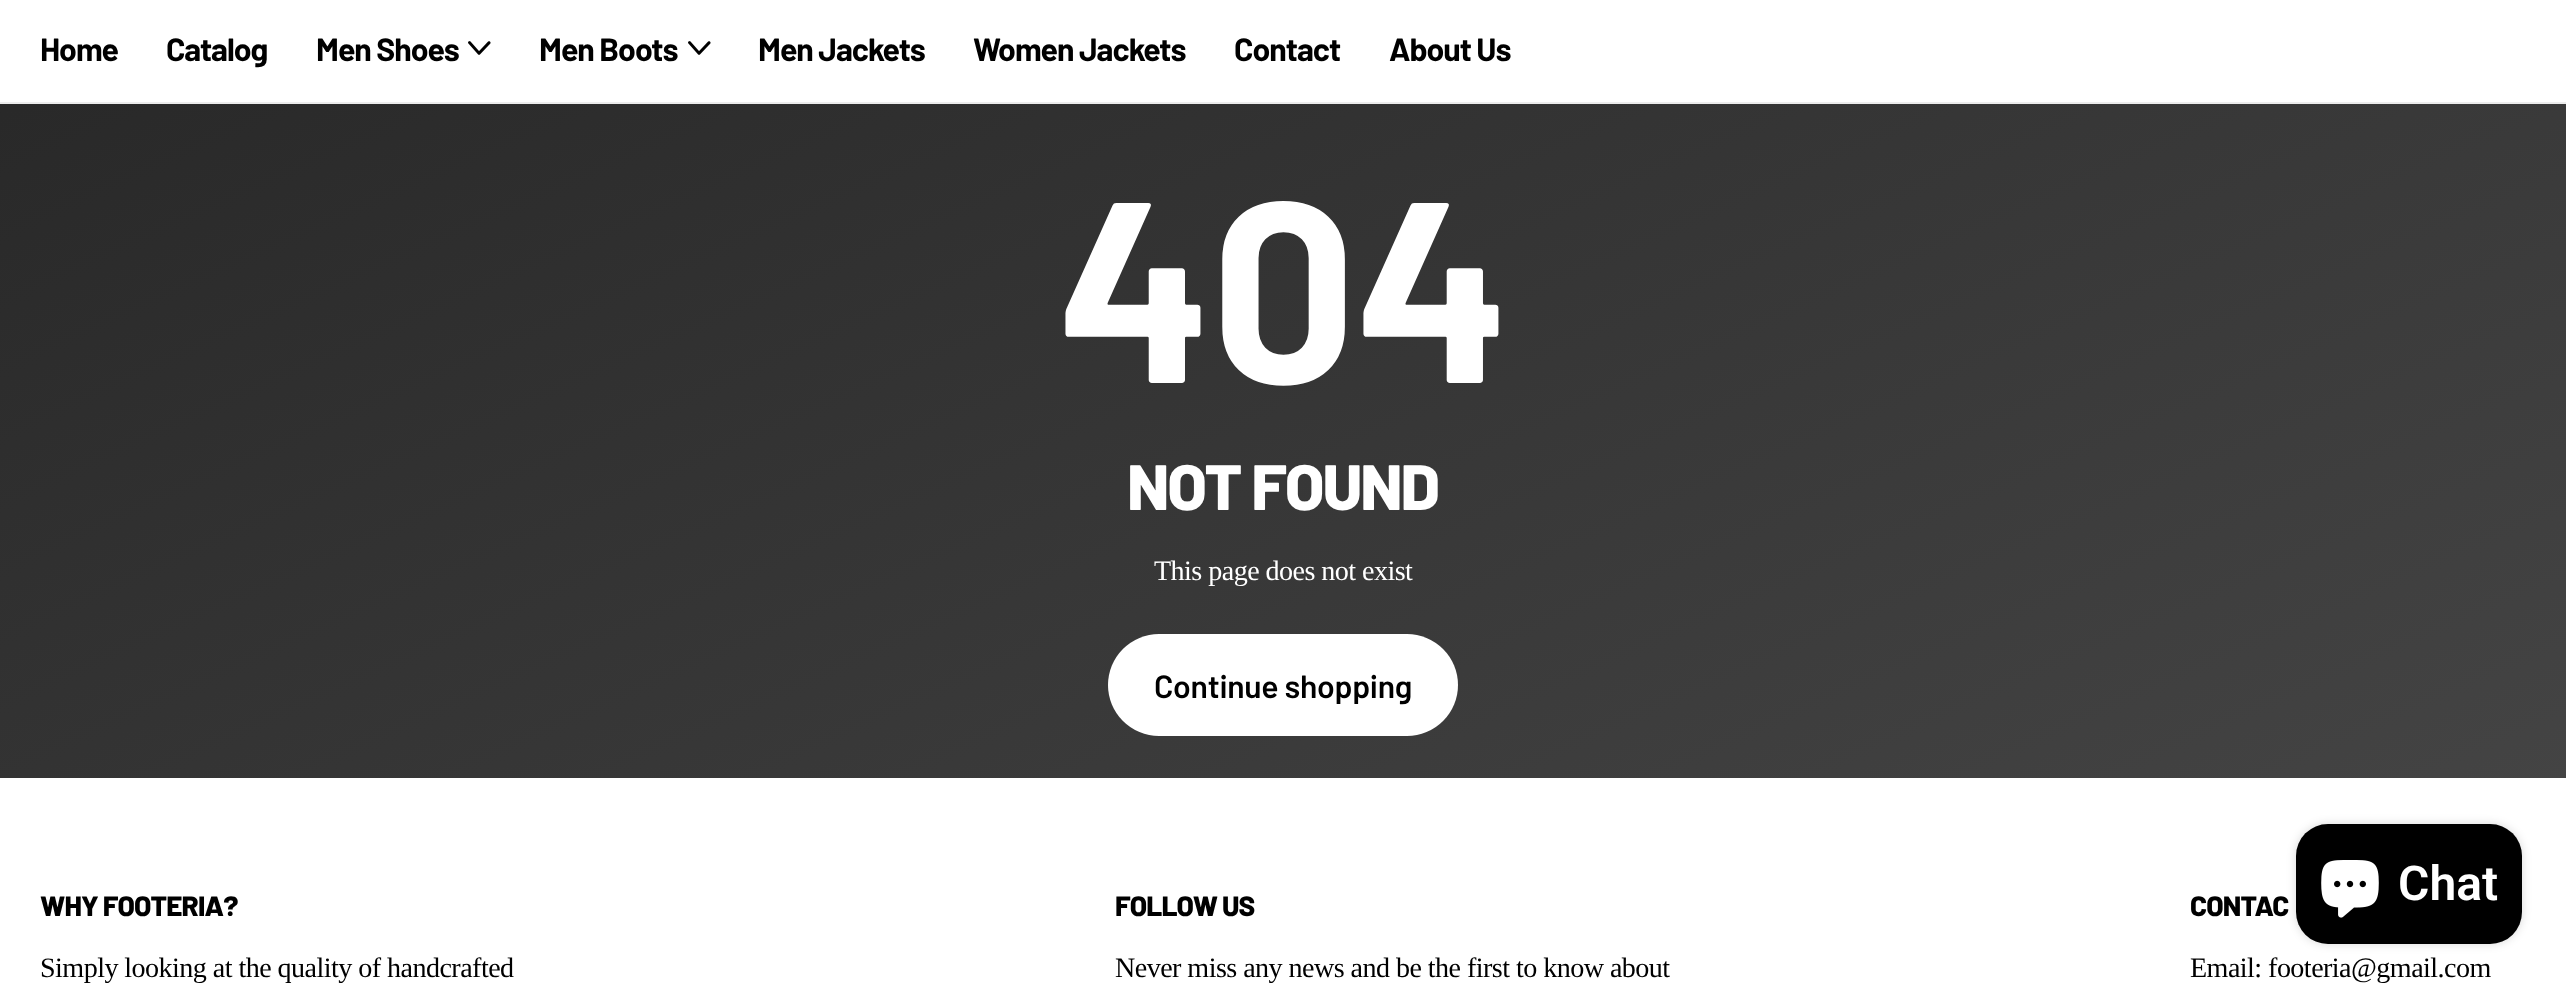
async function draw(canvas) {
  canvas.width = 2566
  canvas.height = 985
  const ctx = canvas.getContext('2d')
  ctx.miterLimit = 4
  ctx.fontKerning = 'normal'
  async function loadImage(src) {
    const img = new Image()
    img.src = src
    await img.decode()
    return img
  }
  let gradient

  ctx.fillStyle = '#fff'
  ctx.fillRect(0, 0, 2566, 985)
  ctx.letterSpacing = '-1px'
  ctx.font = 'bold 32px Barlow'
  ctx.fillStyle = '#000'
  ctx.fillText('Home', 40, 61)
  ctx.fillText('Catalog', 166, 61)
  ctx.fillText('Men Shoes', 316, 61)
  ctx.drawImage(await loadImage('image0.png'), 468, 41, 23, 14)
  ctx.fillText('Men Boots', 539, 61)
  ctx.drawImage(await loadImage('image0.png'), 688, 41, 23, 14)
  ctx.fillText('Men Jackets', 758, 61)
  ctx.fillText('Women Jackets', 973, 61)
  ctx.fillText('Contact', 1234, 61)
  ctx.fillText('About Us', 1389, 61)
  ctx.fillStyle = '#ececec'
  ctx.fillRect(0, 102, 2566, 2)
  gradient = ctx.createLinearGradient(1790, 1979, 776, -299)
  gradient.addColorStop(0.04, '#4f4f4f')
  gradient.addColorStop(1, '#282828')
  ctx.fillStyle = gradient
  ctx.fillRect(0, 104, 2566, 674)
  ctx.letterSpacing = '-2px'
  ctx.font = 'bold 257px Barlow'
  ctx.fillStyle = '#fff'
  ctx.fillText('404', 1057, 383)
  ctx.font = '800 64px Barlow'
  ctx.fillText('NOT FOUND', 1127, 510)
  ctx.letterSpacing = '-0.55px'
  ctx.font = '28.1px Liberation Serif'
  ctx.fillText('This page does not exist', 1154, 580)
  ctx.beginPath()
  ctx.roundRect(1108, 634, 350, 102, 51)
  ctx.fill()
  ctx.letterSpacing = '-0.3px'
  ctx.font = '600 32px Barlow'
  ctx.fillStyle = '#000'
  ctx.fillText('Continue shopping', 1154, 698)
  ctx.letterSpacing = '-0.8px'
  ctx.font = '800 28px Barlow'
  ctx.fillText('WHY FOOTERIA?', 40, 916)
  ctx.letterSpacing = '-0.55px'
  ctx.font = '28.1px Liberation Serif'
  ctx.fillText('Simply looking at the quality of handcrafted', 40, 977)
  ctx.letterSpacing = '-0.8px'
  ctx.font = '800 28px Barlow'
  ctx.fillText('FOLLOW US', 1115, 916)
  ctx.letterSpacing = '-0.55px'
  ctx.font = '28.1px Liberation Serif'
  ctx.fillText('Never miss any news and be the first to know about', 1115, 977)
  ctx.letterSpacing = '-0.8px'
  ctx.font = '800 28px Barlow'
  ctx.fillText('CONTAC', 2190, 916)
  ctx.letterSpacing = '-0.55px'
  ctx.font = '28.1px Liberation Serif'
  ctx.fillText('Email: footeria@gmail.com', 2190, 977)
  ctx.fillStyle = '#00000026'
  ctx.filter = 'blur(5px)'
  ctx.beginPath()
  ctx.roundRect(2296, 824, 226, 120, 32)
  ctx.fill()
  ctx.filter = 'none'
  ctx.fillStyle = '#000'
  ctx.beginPath()
  ctx.roundRect(2296, 824, 226, 120, 32)
  ctx.fill()
  ctx.drawImage(await loadImage('image1.png'), 2321, 860, 58, 58)
  ctx.letterSpacing = '0px'
  ctx.font = '600 48px Roboto'
  ctx.fillStyle = '#fff'
  ctx.fillText('Chat', 2398, 900)
}

draw(document.querySelector('canvas'))
